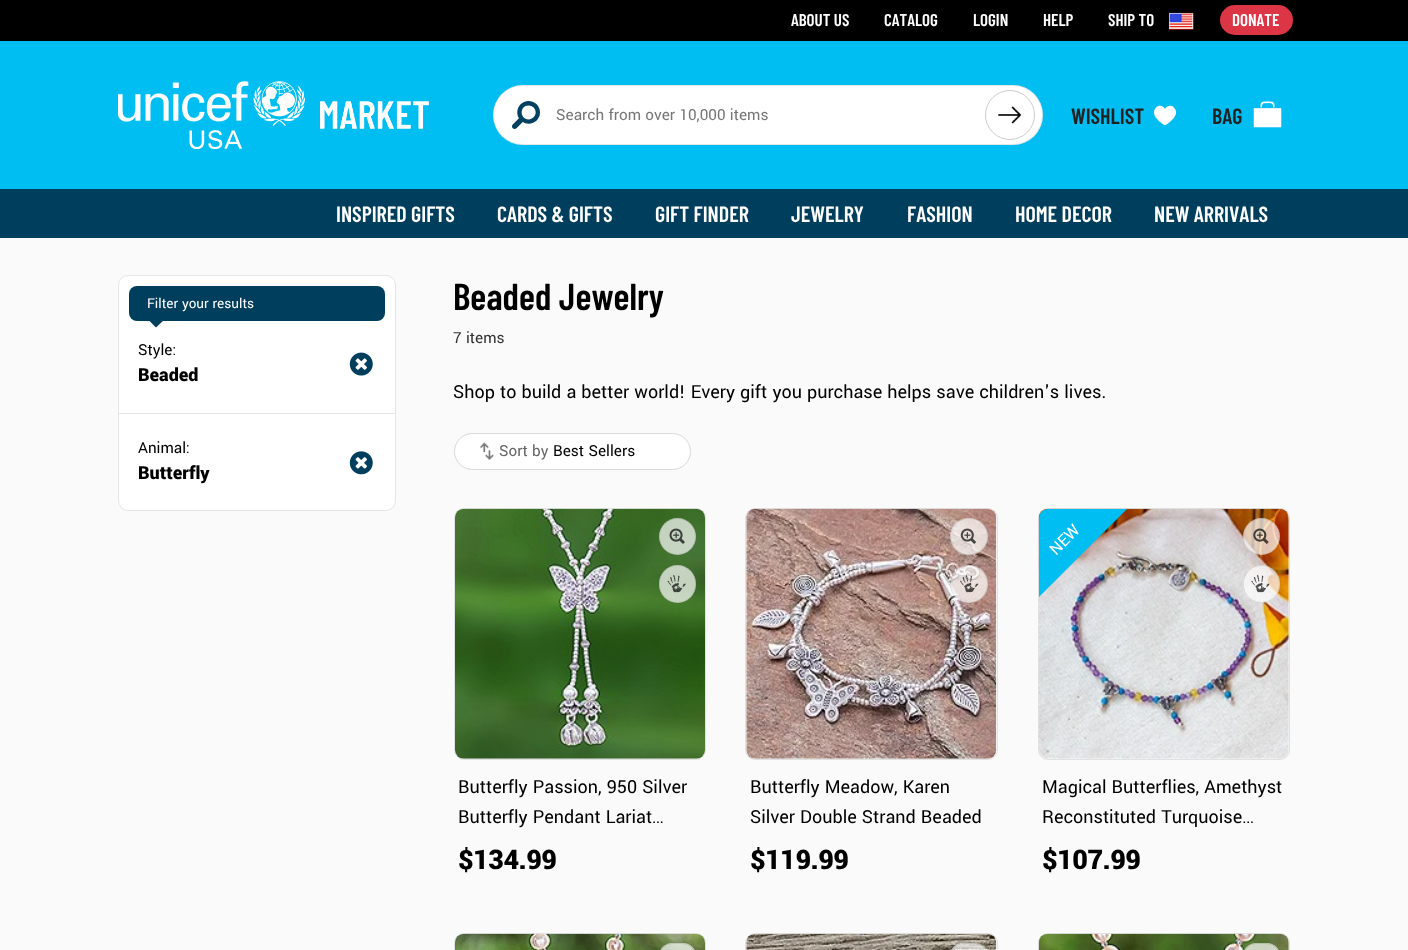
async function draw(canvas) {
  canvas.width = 1408
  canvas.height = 950
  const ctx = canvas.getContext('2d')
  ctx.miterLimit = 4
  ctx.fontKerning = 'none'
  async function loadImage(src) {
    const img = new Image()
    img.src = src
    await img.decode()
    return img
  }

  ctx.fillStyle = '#fafafa'
  ctx.fillRect(0, 0, 1408, 950)
  ctx.fillStyle = '#00bdf2'
  ctx.fillRect(0, 41, 1408, 148)
  ctx.fillStyle = '#000'
  ctx.fillRect(0, 0, 1408, 41)
  ctx.font = '600 17px Barlow Condensed'
  ctx.fillStyle = '#fff'
  ctx.fillText('ABOUT US', 791, 26)
  ctx.fillText('CATALOG', 884, 26)
  ctx.fillText('LOGIN', 973, 26)
  ctx.fillText('HELP', 1043, 26)
  ctx.fillText('SHIP TO', 1108, 26)
  ctx.drawImage(await loadImage('image0.png'), 1169, 12, 25, 18)
  ctx.strokeStyle = '#ffffff99'
  ctx.strokeRect(1169.5, 13.5, 23, 15)
  ctx.fillStyle = '#dc3545'
  ctx.beginPath()
  ctx.roundRect(1220, 5, 73, 30, 15)
  ctx.fill()
  ctx.fillStyle = '#fff'
  ctx.fillText('DONATE', 1232, 26)
  ctx.drawImage(await loadImage('image1.png'), 118, 81, 187, 68)
  ctx.drawImage(await loadImage('image2.png'), 320, 101, 109, 28)
  ctx.beginPath()
  ctx.roundRect(493, 85, 550, 60, 30)
  ctx.fill()
  ctx.beginPath()
  ctx.roundRect(493.5, 85.5, 549, 59, 29.5)
  ctx.strokeStyle = '#0000001a'
  ctx.stroke()
  ctx.beginPath()
  ctx.roundRect(494, 86, 491, 58, [29, 0, 0, 29])
  ctx.fill()
  ctx.font = '28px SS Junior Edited'
  ctx.fillStyle = '#004060'
  ctx.fillText('🔎', 512, 129)
  ctx.font = '17px Yantramanav'
  ctx.fillStyle = '#777'
  ctx.fillText('Search from over 10,000 items', 556, 120)
  ctx.beginPath()
  ctx.arc(1010, 115, 24.5, 0, 2 * Math.PI)
  ctx.strokeStyle = '#ccc'
  ctx.stroke()
  ctx.drawImage(await loadImage('image3.png'), 998, 106, 24, 18)
  ctx.font = '600 22px Barlow Condensed'
  ctx.fillStyle = '#212121'
  ctx.fillText('WISHLIST', 1071, 124)
  ctx.font = '22px SS Junior Edited'
  ctx.fillStyle = '#fff'
  ctx.fillText('♥', 1154, 125)
  ctx.font = '600 22px Barlow Condensed'
  ctx.fillStyle = '#212121'
  ctx.fillText('BAG', 1212, 124)
  ctx.drawImage(await loadImage('image4.png'), 1253, 101, 29, 27)
  ctx.fillStyle = '#003e5e'
  ctx.fillRect(0, 189, 1408, 49)
  ctx.fillStyle = '#fff'
  ctx.fillText('INSPIRED GIFTS', 336, 222)
  ctx.fillText('CARDS & GIFTS', 497, 222)
  ctx.fillText('GIFT FINDER', 655, 222)
  ctx.fillText('JEWELRY', 791, 222)
  ctx.fillText('FASHION', 907, 222)
  ctx.fillText('HOME DECOR', 1015, 222)
  ctx.fillText('NEW ARRIVALS', 1154, 222)
  ctx.beginPath()
  ctx.roundRect(118.5, 275.5, 277, 235, 9.5)
  ctx.fill()
  ctx.strokeStyle = '#e5e5e5'
  ctx.stroke()
  ctx.fillStyle = '#003e5e'
  ctx.beginPath()
  ctx.roundRect(129, 286, 256, 35, 8)
  ctx.fill()
  ctx.font = '15px Yantramanav'
  ctx.fillStyle = '#fff'
  ctx.fillText('Filter your results', 147, 308)
  ctx.fillStyle = '#003e5e'
  ctx.beginPath()
  ctx.moveTo(147.5, 319)
  ctx.lineTo(165, 319)
  ctx.lineTo(156, 327.5)
  ctx.closePath()
  ctx.fill()
  ctx.font = '17px Yantramanav'
  ctx.fillStyle = '#000'
  ctx.fillText('Style:', 138, 355)
  ctx.font = '900 20px Yantramanav'
  ctx.fillText('Beaded', 138, 381)
  ctx.drawImage(await loadImage('image5.png'), 349, 352, 24, 24)
  ctx.fillStyle = '#e6e6e6'
  ctx.fillRect(119, 413, 276, 1)
  ctx.font = '17px Yantramanav'
  ctx.fillStyle = '#000'
  ctx.fillText('Animal:', 138, 453)
  ctx.font = '900 20px Yantramanav'
  ctx.fillText('Butterfly', 138, 479)
  ctx.drawImage(await loadImage('image6.png'), 349, 451, 24, 24)
  ctx.font = '600 37.5px Barlow Condensed'
  ctx.fillText('Beaded Jewelry', 453, 310)
  ctx.font = '17px Yantramanav'
  ctx.fillStyle = '#323232'
  ctx.fillText('7 items', 453, 343)
  ctx.font = '20px Yantramanav'
  ctx.fillStyle = '#000'
  ctx.fillText('Shop to build a better world! Every gift you purchase helps save children\'s lives.', 453, 398)
  ctx.fillStyle = '#fff'
  ctx.beginPath()
  ctx.roundRect(454.5, 433.5, 236, 36, 18)
  ctx.fill()
  ctx.strokeStyle = '#d9d9d9'
  ctx.stroke()
  ctx.drawImage(await loadImage('image7.png'), 480, 442, 14, 18)
  ctx.font = '17px Yantramanav'
  ctx.fillStyle = '#666'
  ctx.fillText('Sort by', 499, 456)
  ctx.fillStyle = '#000'
  ctx.fillText('Best Sellers', 553, 456)
  ctx.beginPath()
  ctx.roundRect(454.5, 508.5, 251, 251, 9.5)
  ctx.strokeStyle = '#e1e1e1'
  ctx.stroke()
  ctx.drawImage(await loadImage('image8.png'), 455, 508, 250, 251)
  ctx.fillStyle = '#ffffffb3'
  ctx.beginPath()
  ctx.arc(677.5, 536.5, 18.5, 0, 2 * Math.PI)
  ctx.fill()
  ctx.beginPath()
  ctx.arc(677.5, 536.5, 18, 0, 2 * Math.PI)
  ctx.strokeStyle = '#0000001a'
  ctx.stroke()
  ctx.drawImage(await loadImage('image9.png'), 669, 528, 16, 16)
  ctx.beginPath()
  ctx.roundRect(659, 565, 37, 38, 18.5)
  ctx.fill()
  ctx.beginPath()
  ctx.roundRect(659.5, 565.5, 36, 37, 18)
  ctx.stroke()
  ctx.drawImage(await loadImage('image10.png'), 667, 575, 19, 18)
  ctx.font = '20px Yantramanav'
  ctx.fillStyle = '#000'
  ctx.fillText('Butterfly Passion, 950 Silver', 458, 793)
  ctx.fillText('Butterfly Pendant Lariat…', 458, 823)
  ctx.letterSpacing = '-0.5px'
  ctx.font = '900 30px Yantramanav'
  ctx.fillText('$134.99', 458, 869)
  ctx.beginPath()
  ctx.roundRect(745.5, 508.5, 252, 251, 9.5)
  ctx.strokeStyle = '#e1e1e1'
  ctx.stroke()
  ctx.drawImage(await loadImage('image11.png'), 746, 508, 251, 251)
  ctx.fillStyle = '#ffffffb3'
  ctx.beginPath()
  ctx.roundRect(950, 518, 38, 37, 18.5)
  ctx.fill()
  ctx.beginPath()
  ctx.roundRect(950.5, 518.5, 37, 36, 18)
  ctx.strokeStyle = '#0000001a'
  ctx.stroke()
  ctx.drawImage(await loadImage('image12.png'), 960, 528, 17, 16)
  ctx.beginPath()
  ctx.arc(969, 584, 19, 0, 2 * Math.PI)
  ctx.fill()
  ctx.beginPath()
  ctx.arc(969, 584, 18.5, 0, 2 * Math.PI)
  ctx.stroke()
  ctx.drawImage(await loadImage('image13.png'), 960, 575, 19, 18)
  ctx.letterSpacing = '0px'
  ctx.font = '20px Yantramanav'
  ctx.fillStyle = '#000'
  ctx.fillText('Butterfly Meadow, Karen', 750, 793)
  ctx.fillText('Silver Double Strand Beaded', 750, 823)
  ctx.letterSpacing = '-0.5px'
  ctx.font = '900 30px Yantramanav'
  ctx.fillText('$119.99', 750, 869)
  ctx.beginPath()
  ctx.roundRect(1038.5, 508.5, 251, 251, 9.5)
  ctx.strokeStyle = '#e1e1e1'
  ctx.stroke()
  ctx.drawImage(await loadImage('image14.png'), 1038, 508, 251, 251)
  ctx.fillStyle = '#00bdf2'
  ctx.beginPath()
  ctx.moveTo(1048, 509)
  ctx.bezierCurveTo(1043, 509, 1039, 513, 1039, 518)
  ctx.lineTo(1039, 597)
  ctx.lineTo(1127, 509)
  ctx.closePath()
  ctx.fill()
  ctx.letterSpacing = '0px'
  ctx.font = '18px Yantramanav'
  ctx.fillStyle = '#fff'
  ctx.save()
  ctx.translate(1056, 556)
  ctx.rotate(-45 * Math.PI / 180)
  ctx.fillText('NEW', 0, 0)
  ctx.restore()
  ctx.fillStyle = '#ffffffb3'
  ctx.beginPath()
  ctx.arc(1261.5, 536.5, 18.5, 0, 2 * Math.PI)
  ctx.fill()
  ctx.beginPath()
  ctx.arc(1261.5, 536.5, 18, 0, 2 * Math.PI)
  ctx.strokeStyle = '#0000001a'
  ctx.stroke()
  ctx.drawImage(await loadImage('image15.png'), 1253, 528, 16, 16)
  ctx.beginPath()
  ctx.roundRect(1243, 565, 37, 38, 18.5)
  ctx.fill()
  ctx.beginPath()
  ctx.roundRect(1243.5, 565.5, 36, 37, 18)
  ctx.stroke()
  ctx.drawImage(await loadImage('image16.png'), 1251, 575, 19, 18)
  ctx.font = '20px Yantramanav'
  ctx.fillStyle = '#000'
  ctx.fillText('Magical Butterflies, Amethyst', 1042, 793)
  ctx.fillText('Reconstituted Turquoise…', 1042, 823)
  ctx.letterSpacing = '-0.5px'
  ctx.font = '900 30px Yantramanav'
  ctx.fillText('$107.99', 1042, 869)
  ctx.beginPath()
  ctx.roundRect(454.5, 933.5, 251, 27, 9.5)
  ctx.strokeStyle = '#e1e1e1'
  ctx.stroke()
  ctx.drawImage(await loadImage('image17.png'), 455, 933, 250, 17)
  ctx.fillStyle = '#ffffffb3'
  ctx.beginPath()
  ctx.roundRect(659, 943, 37, 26, 18.5)
  ctx.fill()
  ctx.beginPath()
  ctx.roundRect(659.5, 943.5, 36, 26, 18)
  ctx.strokeStyle = '#0000001a'
  ctx.stroke()
  ctx.beginPath()
  ctx.roundRect(745.5, 933.5, 252, 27, 9.5)
  ctx.strokeStyle = '#e1e1e1'
  ctx.stroke()
  ctx.drawImage(await loadImage('image18.png'), 746, 933, 251, 17)
  ctx.beginPath()
  ctx.roundRect(950, 943, 38, 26, 18.5)
  ctx.fill()
  ctx.beginPath()
  ctx.roundRect(950.5, 943.5, 37, 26, 18)
  ctx.strokeStyle = '#0000001a'
  ctx.stroke()
  ctx.beginPath()
  ctx.roundRect(1038.5, 933.5, 251, 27, 9.5)
  ctx.strokeStyle = '#e1e1e1'
  ctx.stroke()
  ctx.drawImage(await loadImage('image19.png'), 1038, 933, 251, 17)
  ctx.beginPath()
  ctx.roundRect(1243, 943, 37, 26, 18.5)
  ctx.fill()
  ctx.beginPath()
  ctx.roundRect(1243.5, 943.5, 36, 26, 18)
  ctx.strokeStyle = '#0000001a'
  ctx.stroke()
}

draw(document.querySelector('canvas'))
